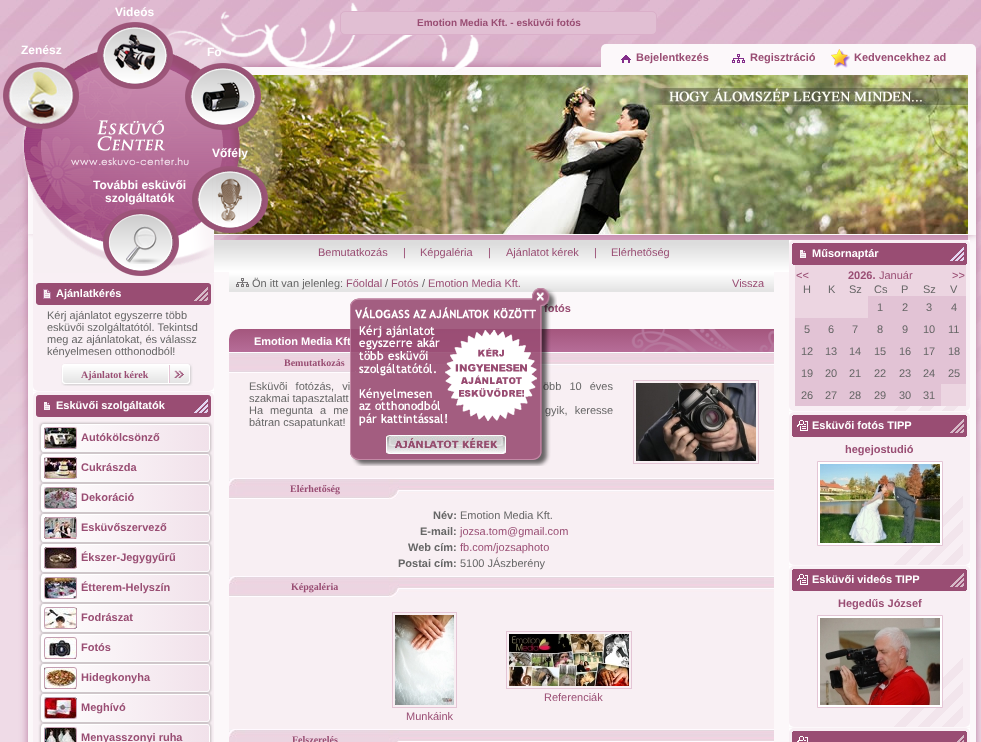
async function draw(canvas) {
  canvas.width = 981
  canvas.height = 742
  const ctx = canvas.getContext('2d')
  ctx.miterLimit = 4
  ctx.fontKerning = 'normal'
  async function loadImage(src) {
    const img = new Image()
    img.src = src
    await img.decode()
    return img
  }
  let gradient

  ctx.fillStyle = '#efdbe7'
  ctx.fillRect(0, 0, 981, 742)
  ctx.drawImage(await loadImage('image0.png'), 0, 0, 981, 570)
  ctx.fillStyle = '#b6789d'
  ctx.filter = 'blur(4px)'
  ctx.beginPath()
  ctx.rect(28, 232, 948, 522)
  ctx.fill()
  ctx.filter = 'none'
  ctx.fillStyle = '#fcf8fa'
  ctx.fillRect(28, 234, 948, 508)
  ctx.fillStyle = '#d3a0bf'
  ctx.fillRect(213, 235, 755, 5)
  ctx.fillStyle = '#b6789d'
  ctx.filter = 'blur(4px)'
  ctx.beginPath()
  ctx.roundRect(214, 66, 762, 168, 5)
  ctx.fill()
  ctx.filter = 'none'
  ctx.fillStyle = '#fcf8fa'
  ctx.fillRect(214, 67, 762, 168)
  ctx.fillStyle = '#b6789d'
  ctx.filter = 'blur(4px)'
  ctx.beginPath()
  ctx.rect(28, 150, 181, 80)
  ctx.fill()
  ctx.filter = 'none'
  ctx.fillStyle = '#fcf8fa'
  ctx.fillRect(28, 172, 5, 62)
  ctx.fillStyle = '#fff'
  ctx.fillRect(33, 274, 181, 123)
  ctx.fillStyle = '#f8eff4'
  ctx.beginPath()
  ctx.roundRect(33, 270, 181, 121, 5)
  ctx.fill()
  ctx.fillStyle = '#f7eff3'
  ctx.fillRect(33, 185, 181, 88)
  ctx.drawImage(await loadImage('image7.png'), 166, 2, 313, 73)
  ctx.drawImage(await loadImage('image11.png'), 214, 75, 754, 159)
  ctx.drawImage(await loadImage('image2.png'), 22, 28, 261, 240)
  ctx.drawImage(await loadImage('image1.png'), 97, 22, 76, 67)
  ctx.font = 'bold 12px Liberation Sans'
  ctx.fillStyle = '#fff'
  ctx.fillText('Videós', 115, 16)
  ctx.drawImage(await loadImage('image3.png'), 3, 62, 76, 67)
  ctx.fillText('Zenész', 21, 54)
  ctx.drawImage(await loadImage('image4.png'), 185, 63, 76, 67)
  ctx.fillText('Fo', 207, 56)
  ctx.drawImage(await loadImage('image5.png'), 192, 166, 76, 67)
  ctx.fillText('Vőfély', 212, 157)
  ctx.drawImage(await loadImage('image6.png'), 103, 209, 76, 67)
  ctx.fillText('További esküvői', 93, 189)
  ctx.fillText('szolgáltatók', 105, 202)
  ctx.fillStyle = '#fcf8fa'
  ctx.beginPath()
  ctx.roundRect(601, 44, 375, 30, [5, 5, 0, 0])
  ctx.fill()
  ctx.drawImage(await loadImage('image8.png'), 621, 55, 10, 8)
  ctx.font = 'bold 11px Liberation Sans'
  ctx.fillStyle = '#994d73'
  ctx.fillText('Bejelentkezés', 636, 61)
  ctx.drawImage(await loadImage('image9.png'), 732, 54, 13, 9)
  ctx.fillText('Regisztráció', 750, 61)
  ctx.drawImage(await loadImage('image10.png'), 831, 49, 19, 19)
  ctx.fillText('Kedvencekhez ad', 854, 61)
  ctx.drawImage(await loadImage('image12.png'), 36, 283, 175, 22)
  ctx.fillStyle = '#fff'
  ctx.fillText('Ajánlatkérés', 56, 297)
  ctx.font = '11px Liberation Sans'
  ctx.fillStyle = '#666'
  ctx.fillText('Kérj ajánlatot egyszerre több', 47, 319)
  ctx.fillText('esküvői szolgáltatótól. Tekintsd', 47, 331)
  ctx.fillText('meg az ajánlatokat, és válassz', 47, 343)
  ctx.fillText('kényelmesen otthonodból!', 47, 355)
  ctx.drawImage(await loadImage('image13.png'), 61, 363, 132, 23)
  ctx.font = 'bold 10px Liberation Serif'
  ctx.fillStyle = '#994d73'
  ctx.fillText('Ajánlatot kérek', 81, 378)
  ctx.fillStyle = '#fcf8fa'
  ctx.fillRect(33, 391, 181, 1)
  ctx.fillStyle = '#f8eff4'
  ctx.beginPath()
  ctx.roundRect(33, 392, 181, 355, 5)
  ctx.fill()
  ctx.drawImage(await loadImage('image14.png'), 36, 395, 175, 22)
  ctx.font = 'bold 11px Liberation Sans'
  ctx.fillStyle = '#fff'
  ctx.fillText('Esküvői szolgáltatók', 56, 409)
  ctx.fillStyle = '#c3bbbf'
  ctx.filter = 'blur(1px)'
  ctx.beginPath()
  ctx.roundRect(40, 423, 171, 30, 4)
  ctx.fill()
  ctx.filter = 'none'
  ctx.save()
  ctx.beginPath()
  ctx.roundRect(41, 424, 169, 28, 3)
  ctx.clip()
  gradient = ctx.createLinearGradient(42, 438, 209, 438)
  gradient.addColorStop(0, '#fff')
  gradient.addColorStop(1, '#f1e1ea')
  ctx.fillStyle = gradient
  ctx.fillRect(42, 424, 167, 28)
  ctx.restore()
  ctx.beginPath()
  ctx.roundRect(41.5, 424.5, 168, 27, 2.5)
  ctx.strokeStyle = '#fff'
  ctx.stroke()
  ctx.drawImage(await loadImage('image15.png'), 44, 427, 33, 22)
  ctx.beginPath()
  ctx.roundRect(44.5, 427.5, 32, 21, 2.5)
  ctx.strokeStyle = '#c59eb1'
  ctx.stroke()
  ctx.fillStyle = '#994d73'
  ctx.fillText('Autókölcsönző', 81, 441)
  ctx.fillStyle = '#c3bbbf'
  ctx.filter = 'blur(1px)'
  ctx.beginPath()
  ctx.roundRect(40, 453, 171, 30, 4)
  ctx.fill()
  ctx.filter = 'none'
  ctx.save()
  ctx.beginPath()
  ctx.roundRect(41, 454, 169, 28, 3)
  ctx.clip()
  gradient = ctx.createLinearGradient(42, 468, 209, 468)
  gradient.addColorStop(0, '#fff')
  gradient.addColorStop(1, '#f1e1ea')
  ctx.fillStyle = gradient
  ctx.fillRect(42, 454, 167, 28)
  ctx.restore()
  ctx.beginPath()
  ctx.roundRect(41.5, 454.5, 168, 27, 2.5)
  ctx.strokeStyle = '#fff'
  ctx.stroke()
  ctx.drawImage(await loadImage('image16.png'), 44, 457, 33, 22)
  ctx.beginPath()
  ctx.roundRect(44.5, 457.5, 32, 21, 2.5)
  ctx.strokeStyle = '#c59eb1'
  ctx.stroke()
  ctx.fillStyle = '#994d73'
  ctx.fillText('Cukrászda', 81, 471)
  ctx.fillStyle = '#c3bbbf'
  ctx.filter = 'blur(1px)'
  ctx.beginPath()
  ctx.roundRect(40, 483, 171, 30, 4)
  ctx.fill()
  ctx.filter = 'none'
  ctx.save()
  ctx.beginPath()
  ctx.roundRect(41, 484, 169, 28, 3)
  ctx.clip()
  gradient = ctx.createLinearGradient(42, 498, 209, 498)
  gradient.addColorStop(0, '#fff')
  gradient.addColorStop(1, '#f1e1ea')
  ctx.fillStyle = gradient
  ctx.fillRect(42, 484, 167, 28)
  ctx.restore()
  ctx.beginPath()
  ctx.roundRect(41.5, 484.5, 168, 27, 2.5)
  ctx.strokeStyle = '#fff'
  ctx.stroke()
  ctx.drawImage(await loadImage('image17.png'), 44, 487, 33, 22)
  ctx.beginPath()
  ctx.roundRect(44.5, 487.5, 32, 21, 2.5)
  ctx.strokeStyle = '#c59eb1'
  ctx.stroke()
  ctx.fillStyle = '#994d73'
  ctx.fillText('Dekoráció', 81, 501)
  ctx.fillStyle = '#c3bbbf'
  ctx.filter = 'blur(1px)'
  ctx.beginPath()
  ctx.roundRect(40, 513, 171, 30, 4)
  ctx.fill()
  ctx.filter = 'none'
  ctx.save()
  ctx.beginPath()
  ctx.roundRect(41, 514, 169, 28, 3)
  ctx.clip()
  gradient = ctx.createLinearGradient(42, 528, 209, 528)
  gradient.addColorStop(0, '#fff')
  gradient.addColorStop(1, '#f1e1ea')
  ctx.fillStyle = gradient
  ctx.fillRect(42, 514, 167, 28)
  ctx.restore()
  ctx.beginPath()
  ctx.roundRect(41.5, 514.5, 168, 27, 2.5)
  ctx.strokeStyle = '#fff'
  ctx.stroke()
  ctx.drawImage(await loadImage('image18.png'), 44, 517, 33, 22)
  ctx.beginPath()
  ctx.roundRect(44.5, 517.5, 32, 21, 2.5)
  ctx.strokeStyle = '#c59eb1'
  ctx.stroke()
  ctx.fillStyle = '#994d73'
  ctx.fillText('Esküvőszervező', 81, 531)
  ctx.fillStyle = '#c3bbbf'
  ctx.filter = 'blur(1px)'
  ctx.beginPath()
  ctx.roundRect(40, 543, 171, 30, 4)
  ctx.fill()
  ctx.filter = 'none'
  ctx.save()
  ctx.beginPath()
  ctx.roundRect(41, 544, 169, 28, 3)
  ctx.clip()
  gradient = ctx.createLinearGradient(42, 558, 209, 558)
  gradient.addColorStop(0, '#fff')
  gradient.addColorStop(1, '#f1e1ea')
  ctx.fillStyle = gradient
  ctx.fillRect(42, 544, 167, 28)
  ctx.restore()
  ctx.beginPath()
  ctx.roundRect(41.5, 544.5, 168, 27, 2.5)
  ctx.strokeStyle = '#fff'
  ctx.stroke()
  ctx.drawImage(await loadImage('image19.png'), 44, 547, 33, 22)
  ctx.beginPath()
  ctx.roundRect(44.5, 547.5, 32, 21, 2.5)
  ctx.strokeStyle = '#c59eb1'
  ctx.stroke()
  ctx.fillStyle = '#994d73'
  ctx.fillText('Ékszer-Jegygyűrű', 81, 561)
  ctx.fillStyle = '#c3bbbf'
  ctx.filter = 'blur(1px)'
  ctx.beginPath()
  ctx.roundRect(40, 573, 171, 30, 4)
  ctx.fill()
  ctx.filter = 'none'
  ctx.save()
  ctx.beginPath()
  ctx.roundRect(41, 574, 169, 28, 3)
  ctx.clip()
  gradient = ctx.createLinearGradient(42, 588, 209, 588)
  gradient.addColorStop(0, '#fff')
  gradient.addColorStop(1, '#f1e1ea')
  ctx.fillStyle = gradient
  ctx.fillRect(42, 574, 167, 28)
  ctx.restore()
  ctx.beginPath()
  ctx.roundRect(41.5, 574.5, 168, 27, 2.5)
  ctx.strokeStyle = '#fff'
  ctx.stroke()
  ctx.drawImage(await loadImage('image20.png'), 44, 577, 33, 22)
  ctx.beginPath()
  ctx.roundRect(44.5, 577.5, 32, 21, 2.5)
  ctx.strokeStyle = '#c59eb1'
  ctx.stroke()
  ctx.fillStyle = '#994d73'
  ctx.fillText('Étterem-Helyszín', 81, 591)
  ctx.fillStyle = '#c3bbbf'
  ctx.filter = 'blur(1px)'
  ctx.beginPath()
  ctx.roundRect(40, 603, 171, 30, 4)
  ctx.fill()
  ctx.filter = 'none'
  ctx.save()
  ctx.beginPath()
  ctx.roundRect(41, 604, 169, 28, 3)
  ctx.clip()
  gradient = ctx.createLinearGradient(42, 618, 209, 618)
  gradient.addColorStop(0, '#fff')
  gradient.addColorStop(1, '#f1e1ea')
  ctx.fillStyle = gradient
  ctx.fillRect(42, 604, 167, 28)
  ctx.restore()
  ctx.beginPath()
  ctx.roundRect(41.5, 604.5, 168, 27, 2.5)
  ctx.strokeStyle = '#fff'
  ctx.stroke()
  ctx.drawImage(await loadImage('image21.png'), 44, 607, 33, 22)
  ctx.beginPath()
  ctx.roundRect(44.5, 607.5, 32, 21, 2.5)
  ctx.strokeStyle = '#c59eb1'
  ctx.stroke()
  ctx.fillStyle = '#994d73'
  ctx.fillText('Fodrászat', 81, 621)
  ctx.fillStyle = '#c3bbbf'
  ctx.filter = 'blur(1px)'
  ctx.beginPath()
  ctx.roundRect(40, 633, 171, 30, 4)
  ctx.fill()
  ctx.filter = 'none'
  ctx.save()
  ctx.beginPath()
  ctx.roundRect(41, 634, 169, 28, 3)
  ctx.clip()
  gradient = ctx.createLinearGradient(42, 648, 209, 648)
  gradient.addColorStop(0, '#fff')
  gradient.addColorStop(1, '#f1e1ea')
  ctx.fillStyle = gradient
  ctx.fillRect(42, 634, 167, 28)
  ctx.restore()
  ctx.beginPath()
  ctx.roundRect(41.5, 634.5, 168, 27, 2.5)
  ctx.strokeStyle = '#fff'
  ctx.stroke()
  ctx.drawImage(await loadImage('image22.png'), 44, 637, 33, 22)
  ctx.beginPath()
  ctx.roundRect(44.5, 637.5, 32, 21, 2.5)
  ctx.strokeStyle = '#c59eb1'
  ctx.stroke()
  ctx.fillStyle = '#994d73'
  ctx.fillText('Fotós', 81, 651)
  ctx.fillStyle = '#c3bbbf'
  ctx.filter = 'blur(1px)'
  ctx.beginPath()
  ctx.roundRect(40, 663, 171, 30, 4)
  ctx.fill()
  ctx.filter = 'none'
  ctx.save()
  ctx.beginPath()
  ctx.roundRect(41, 664, 169, 28, 3)
  ctx.clip()
  gradient = ctx.createLinearGradient(42, 678, 209, 678)
  gradient.addColorStop(0, '#fff')
  gradient.addColorStop(1, '#f1e1ea')
  ctx.fillStyle = gradient
  ctx.fillRect(42, 664, 167, 28)
  ctx.restore()
  ctx.beginPath()
  ctx.roundRect(41.5, 664.5, 168, 27, 2.5)
  ctx.strokeStyle = '#fff'
  ctx.stroke()
  ctx.drawImage(await loadImage('image23.png'), 44, 667, 33, 22)
  ctx.beginPath()
  ctx.roundRect(44.5, 667.5, 32, 21, 2.5)
  ctx.strokeStyle = '#c59eb1'
  ctx.stroke()
  ctx.fillStyle = '#994d73'
  ctx.fillText('Hidegkonyha', 81, 681)
  ctx.fillStyle = '#c3bbbf'
  ctx.filter = 'blur(1px)'
  ctx.beginPath()
  ctx.roundRect(40, 693, 171, 30, 4)
  ctx.fill()
  ctx.filter = 'none'
  ctx.save()
  ctx.beginPath()
  ctx.roundRect(41, 694, 169, 28, 3)
  ctx.clip()
  gradient = ctx.createLinearGradient(42, 708, 209, 708)
  gradient.addColorStop(0, '#fff')
  gradient.addColorStop(1, '#f1e1ea')
  ctx.fillStyle = gradient
  ctx.fillRect(42, 694, 167, 28)
  ctx.restore()
  ctx.beginPath()
  ctx.roundRect(41.5, 694.5, 168, 27, 2.5)
  ctx.strokeStyle = '#fff'
  ctx.stroke()
  ctx.drawImage(await loadImage('image24.png'), 44, 697, 33, 22)
  ctx.beginPath()
  ctx.roundRect(44.5, 697.5, 32, 21, 2.5)
  ctx.strokeStyle = '#c59eb1'
  ctx.stroke()
  ctx.fillStyle = '#994d73'
  ctx.fillText('Meghívó', 81, 711)
  ctx.fillStyle = '#c3bbbf'
  ctx.filter = 'blur(1px)'
  ctx.beginPath()
  ctx.roundRect(40, 723, 171, 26, 4)
  ctx.fill()
  ctx.filter = 'none'
  ctx.save()
  ctx.beginPath()
  ctx.roundRect(41, 724, 169, 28, 3)
  ctx.clip()
  gradient = ctx.createLinearGradient(42, 738, 209, 738)
  gradient.addColorStop(0, '#fff')
  gradient.addColorStop(1, '#f1e1ea')
  ctx.fillStyle = gradient
  ctx.fillRect(42, 724, 167, 18)
  ctx.restore()
  ctx.beginPath()
  ctx.roundRect(41.5, 724.5, 168, 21, 2.5)
  ctx.strokeStyle = '#fff'
  ctx.stroke()
  ctx.drawImage(await loadImage('image25.png'), 44, 727, 33, 15)
  ctx.beginPath()
  ctx.roundRect(44.5, 727.5, 32, 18, 2.5)
  ctx.strokeStyle = '#c59eb1'
  ctx.stroke()
  ctx.fillStyle = '#994d73'
  ctx.fillText('Menyasszonyi ruha', 81, 741)
  ctx.drawImage(await loadImage('image26.png'), 214, 240, 575, 32)
  ctx.font = '11px Liberation Sans'
  ctx.fillText('Bemutatkozás', 318, 256)
  ctx.fillText('|', 403, 256)
  ctx.fillText('Képgaléria', 420, 256)
  ctx.fillText('|', 488, 256)
  ctx.fillText('Ajánlatot kérek', 506, 256)
  ctx.fillText('|', 594, 256)
  ctx.fillText('Elérhetőség', 611, 256)
  ctx.drawImage(await loadImage('image27.png'), 229, 272, 545, 20)
  ctx.drawImage(await loadImage('image28.png'), 236, 278, 13, 9)
  ctx.fillStyle = '#666'
  ctx.fillText('Ön itt van jelenleg:', 252, 287)
  ctx.fillStyle = '#994d73'
  ctx.fillText('Főoldal', 346, 287)
  ctx.fillStyle = '#666'
  ctx.fillText('/', 385, 287)
  ctx.fillStyle = '#994d73'
  ctx.fillText('Fotós', 391, 287)
  ctx.fillStyle = '#666'
  ctx.fillText('/', 422, 287)
  ctx.fillStyle = '#994d73'
  ctx.fillText('Emotion Media Kft.', 428, 287)
  ctx.fillText('Vissza', 732, 287)
  ctx.font = 'bold 11px Liberation Sans'
  ctx.fillText('fotós', 544, 312)
  ctx.drawImage(await loadImage('image29.png'), 229, 329, 545, 23)
  ctx.fillStyle = '#fff'
  ctx.fillText('Emotion Media Kft', 254, 345)
  ctx.drawImage(await loadImage('image30.png'), 229, 352, 545, 21)
  ctx.drawImage(await loadImage('image31.png'), 229, 354, 170, 19)
  ctx.font = 'bold 10px Liberation Serif'
  ctx.fillStyle = '#994d73'
  ctx.fillText('Bemutatkozás', 284, 366)
  ctx.fillStyle = '#f8eff3'
  ctx.fillRect(229, 373, 545, 105)
  ctx.wordSpacing = '5px'
  ctx.font = '11px Liberation Sans'
  ctx.fillStyle = '#666'
  ctx.fillText('Esküvõi fotózás, vi', 249, 390)
  ctx.fillText('öbb 10 éves', 543, 390)
  ctx.wordSpacing = '0px'
  ctx.fillText('szakmai tapasztalatt', 249, 402)
  ctx.wordSpacing = '4px'
  ctx.fillText('Ha megunta a me', 249, 414)
  ctx.fillText('gyik, keresse', 545, 414)
  ctx.wordSpacing = '0px'
  ctx.fillText('bátran csapatunkat!', 249, 426)
  ctx.strokeStyle = '#e4c5d5'
  ctx.strokeRect(633.5, 380.5, 125, 83)
  ctx.drawImage(await loadImage('image32.png'), 636, 383, 120, 78)
  ctx.drawImage(await loadImage('image33.png'), 399, 478, 375, 21)
  ctx.drawImage(await loadImage('image34.png'), 229, 478, 170, 21)
  ctx.font = 'bold 10px Liberation Serif'
  ctx.fillStyle = '#994d73'
  ctx.fillText('Elérhetőség', 290, 492)
  ctx.fillStyle = '#f8eff3'
  ctx.fillRect(229, 499, 545, 77)
  ctx.font = 'bold 11px Liberation Sans'
  ctx.fillStyle = '#666'
  ctx.fillText('Név:', 433, 519)
  ctx.font = '11px Liberation Sans'
  ctx.fillText('Emotion Media Kft.', 460, 519)
  ctx.font = 'bold 11px Liberation Sans'
  ctx.fillText('E-mail:', 420, 535)
  ctx.font = '11px Liberation Sans'
  ctx.fillStyle = '#994d73'
  ctx.fillText('jozsa.tom@gmail.com', 460, 535)
  ctx.font = 'bold 11px Liberation Sans'
  ctx.fillStyle = '#666'
  ctx.fillText('Web cím:', 408, 551)
  ctx.font = '11px Liberation Sans'
  ctx.fillStyle = '#994d73'
  ctx.fillText('fb.com/jozsaphoto', 460, 551)
  ctx.font = 'bold 11px Liberation Sans'
  ctx.fillStyle = '#666'
  ctx.fillText('Postai cím:', 398, 567)
  ctx.font = '11px Liberation Sans'
  ctx.fillText('5100 JÁszberény', 460, 567)
  ctx.drawImage(await loadImage('image33.png'), 399, 576, 375, 21)
  ctx.drawImage(await loadImage('image34.png'), 229, 576, 170, 21)
  ctx.font = 'bold 10px Liberation Serif'
  ctx.fillStyle = '#994d73'
  ctx.fillText('Képgaléria', 291, 590)
  ctx.fillStyle = '#f8eff3'
  ctx.fillRect(229, 597, 545, 132)
  ctx.strokeRect(506.5, 631.5, 125, 57)
  ctx.drawImage(await loadImage('image35.png'), 509, 634, 120, 52)
  ctx.font = '11px Liberation Sans'
  ctx.fillStyle = '#994d73'
  ctx.fillText('Referenciák', 544, 701)
  ctx.strokeRect(392.5, 612.5, 64, 95)
  ctx.drawImage(await loadImage('image36.png'), 395, 615, 59, 90)
  ctx.fillText('Munkáink', 406, 720)
  ctx.drawImage(await loadImage('image37.png'), 399, 729, 375, 13)
  ctx.drawImage(await loadImage('image38.png'), 229, 729, 170, 13)
  ctx.font = 'bold 10px Liberation Serif'
  ctx.fillText('Felszerelés', 292, 743)
  ctx.fillStyle = '#fff'
  ctx.fillRect(789, 240, 181, 493)
  ctx.fillStyle = '#f8eff4'
  ctx.beginPath()
  ctx.roundRect(789, 240, 181, 171, 5)
  ctx.fill()
  ctx.drawImage(await loadImage('image39.png'), 894, 406, 64, 5)
  ctx.drawImage(await loadImage('image40.png'), 792, 243, 175, 22)
  ctx.font = 'bold 11px Liberation Sans'
  ctx.fillStyle = '#fff'
  ctx.fillText('Műsornaptár', 812, 257)
  ctx.fillStyle = '#ecd5e1'
  ctx.fillRect(795, 265, 171, 141)
  ctx.font = '11px Liberation Sans'
  ctx.fillStyle = '#994d73'
  ctx.fillText('<<', 796, 279)
  ctx.font = 'bold 11px Liberation Sans'
  ctx.fillText('2026.', 848, 279)
  ctx.font = '11px Liberation Sans'
  ctx.fillText('Január', 879, 279)
  ctx.fillText('>>', 952, 279)
  ctx.fillStyle = '#666'
  ctx.fillText('H', 803, 293)
  ctx.fillText('K', 828, 293)
  ctx.fillText('Sz', 849, 293)
  ctx.fillText('Cs', 874, 293)
  ctx.fillText('P', 901, 293)
  ctx.fillText('Sz', 923, 293)
  ctx.fillText('V', 950, 293)
  ctx.fillStyle = '#e2c3d5'
  ctx.fillRect(868, 296, 98, 22)
  ctx.fillStyle = '#666'
  ctx.fillText('1', 877, 311)
  ctx.fillText('2', 902, 311)
  ctx.fillText('3', 926, 311)
  ctx.fillText('4', 951, 311)
  ctx.fillStyle = '#e2c3d5'
  ctx.fillRect(795, 318, 171, 22)
  ctx.fillStyle = '#666'
  ctx.fillText('5', 804, 333)
  ctx.fillText('6', 828, 333)
  ctx.fillText('7', 852, 333)
  ctx.fillText('8', 877, 333)
  ctx.fillText('9', 902, 333)
  ctx.fillText('10', 923, 333)
  ctx.fillText('11', 948, 333)
  ctx.fillStyle = '#e2c3d5'
  ctx.fillRect(795, 340, 171, 22)
  ctx.fillStyle = '#666'
  ctx.fillText('12', 801, 355)
  ctx.fillText('13', 825, 355)
  ctx.fillText('14', 849, 355)
  ctx.fillText('15', 874, 355)
  ctx.fillText('16', 899, 355)
  ctx.fillText('17', 923, 355)
  ctx.fillText('18', 948, 355)
  ctx.fillStyle = '#e2c3d5'
  ctx.fillRect(795, 362, 171, 22)
  ctx.fillStyle = '#666'
  ctx.fillText('19', 801, 377)
  ctx.fillText('20', 825, 377)
  ctx.fillText('21', 849, 377)
  ctx.fillText('22', 874, 377)
  ctx.fillText('23', 899, 377)
  ctx.fillText('24', 923, 377)
  ctx.fillText('25', 948, 377)
  ctx.fillStyle = '#e2c3d5'
  ctx.fillRect(795, 384, 146, 22)
  ctx.fillStyle = '#666'
  ctx.fillText('26', 801, 399)
  ctx.fillText('27', 825, 399)
  ctx.fillText('28', 849, 399)
  ctx.fillText('29', 874, 399)
  ctx.fillText('30', 899, 399)
  ctx.fillText('31', 923, 399)
  ctx.fillStyle = '#fcf8fa'
  ctx.fillRect(789, 411, 181, 1)
  ctx.fillStyle = '#f8eff4'
  ctx.beginPath()
  ctx.roundRect(789, 412, 181, 153, 5)
  ctx.fill()
  ctx.drawImage(await loadImage('image41.png'), 894, 496, 69, 69)
  ctx.drawImage(await loadImage('image42.png'), 792, 415, 175, 22)
  ctx.font = 'bold 11px Liberation Sans'
  ctx.fillStyle = '#fff'
  ctx.fillText('Esküvői fotós TIPP', 812, 429)
  ctx.fillStyle = '#994d73'
  ctx.fillText('hegejostudió', 845, 453)
  ctx.fillStyle = '#fff'
  ctx.beginPath()
  ctx.rect(817.5, 461.5, 125, 84)
  ctx.fill()
  ctx.stroke()
  ctx.drawImage(await loadImage('image43.png'), 820, 464, 120, 79)
  ctx.fillStyle = '#fcf8fa'
  ctx.fillRect(789, 565, 181, 1)
  ctx.fillStyle = '#f8eff4'
  ctx.beginPath()
  ctx.roundRect(789, 566, 181, 161, 5)
  ctx.fill()
  ctx.drawImage(await loadImage('image41.png'), 894, 658, 69, 69)
  ctx.drawImage(await loadImage('image42.png'), 792, 569, 175, 22)
  ctx.fillStyle = '#fff'
  ctx.fillText('Esküvői videós TIPP', 812, 583)
  ctx.fillStyle = '#994d73'
  ctx.fillText('Hegedűs József', 838, 607)
  ctx.fillStyle = '#fff'
  ctx.beginPath()
  ctx.rect(817.5, 615.5, 125, 92)
  ctx.fill()
  ctx.stroke()
  ctx.drawImage(await loadImage('image44.png'), 820, 618, 120, 87)
  ctx.fillStyle = '#fcf8fa'
  ctx.fillRect(789, 727, 181, 1)
  ctx.fillStyle = '#f8eff4'
  ctx.beginPath()
  ctx.roundRect(789, 728, 181, 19, 5)
  ctx.fill()
  ctx.drawImage(await loadImage('image45.png'), 792, 731, 175, 11)
  ctx.fillStyle = '#e1bfd3'
  ctx.beginPath()
  ctx.roundRect(340.5, 11.5, 316, 23, 4.5)
  ctx.fill()
  ctx.strokeStyle = '#daafc9'
  ctx.stroke()
  ctx.font = 'bold 10px Liberation Sans'
  ctx.fillStyle = '#994d73'
  ctx.fillText('Emotion Media Kft. - esküvői fotós', 417, 26)
  ctx.drawImage(await loadImage('image46.png'), 350, 298, 207, 168)
  ctx.drawImage(await loadImage('image47.png'), 532, 288, 25, 18)
  ctx.drawImage(await loadImage('image48.png'), 386, 435, 120, 19)
}

draw(document.querySelector('canvas'))
